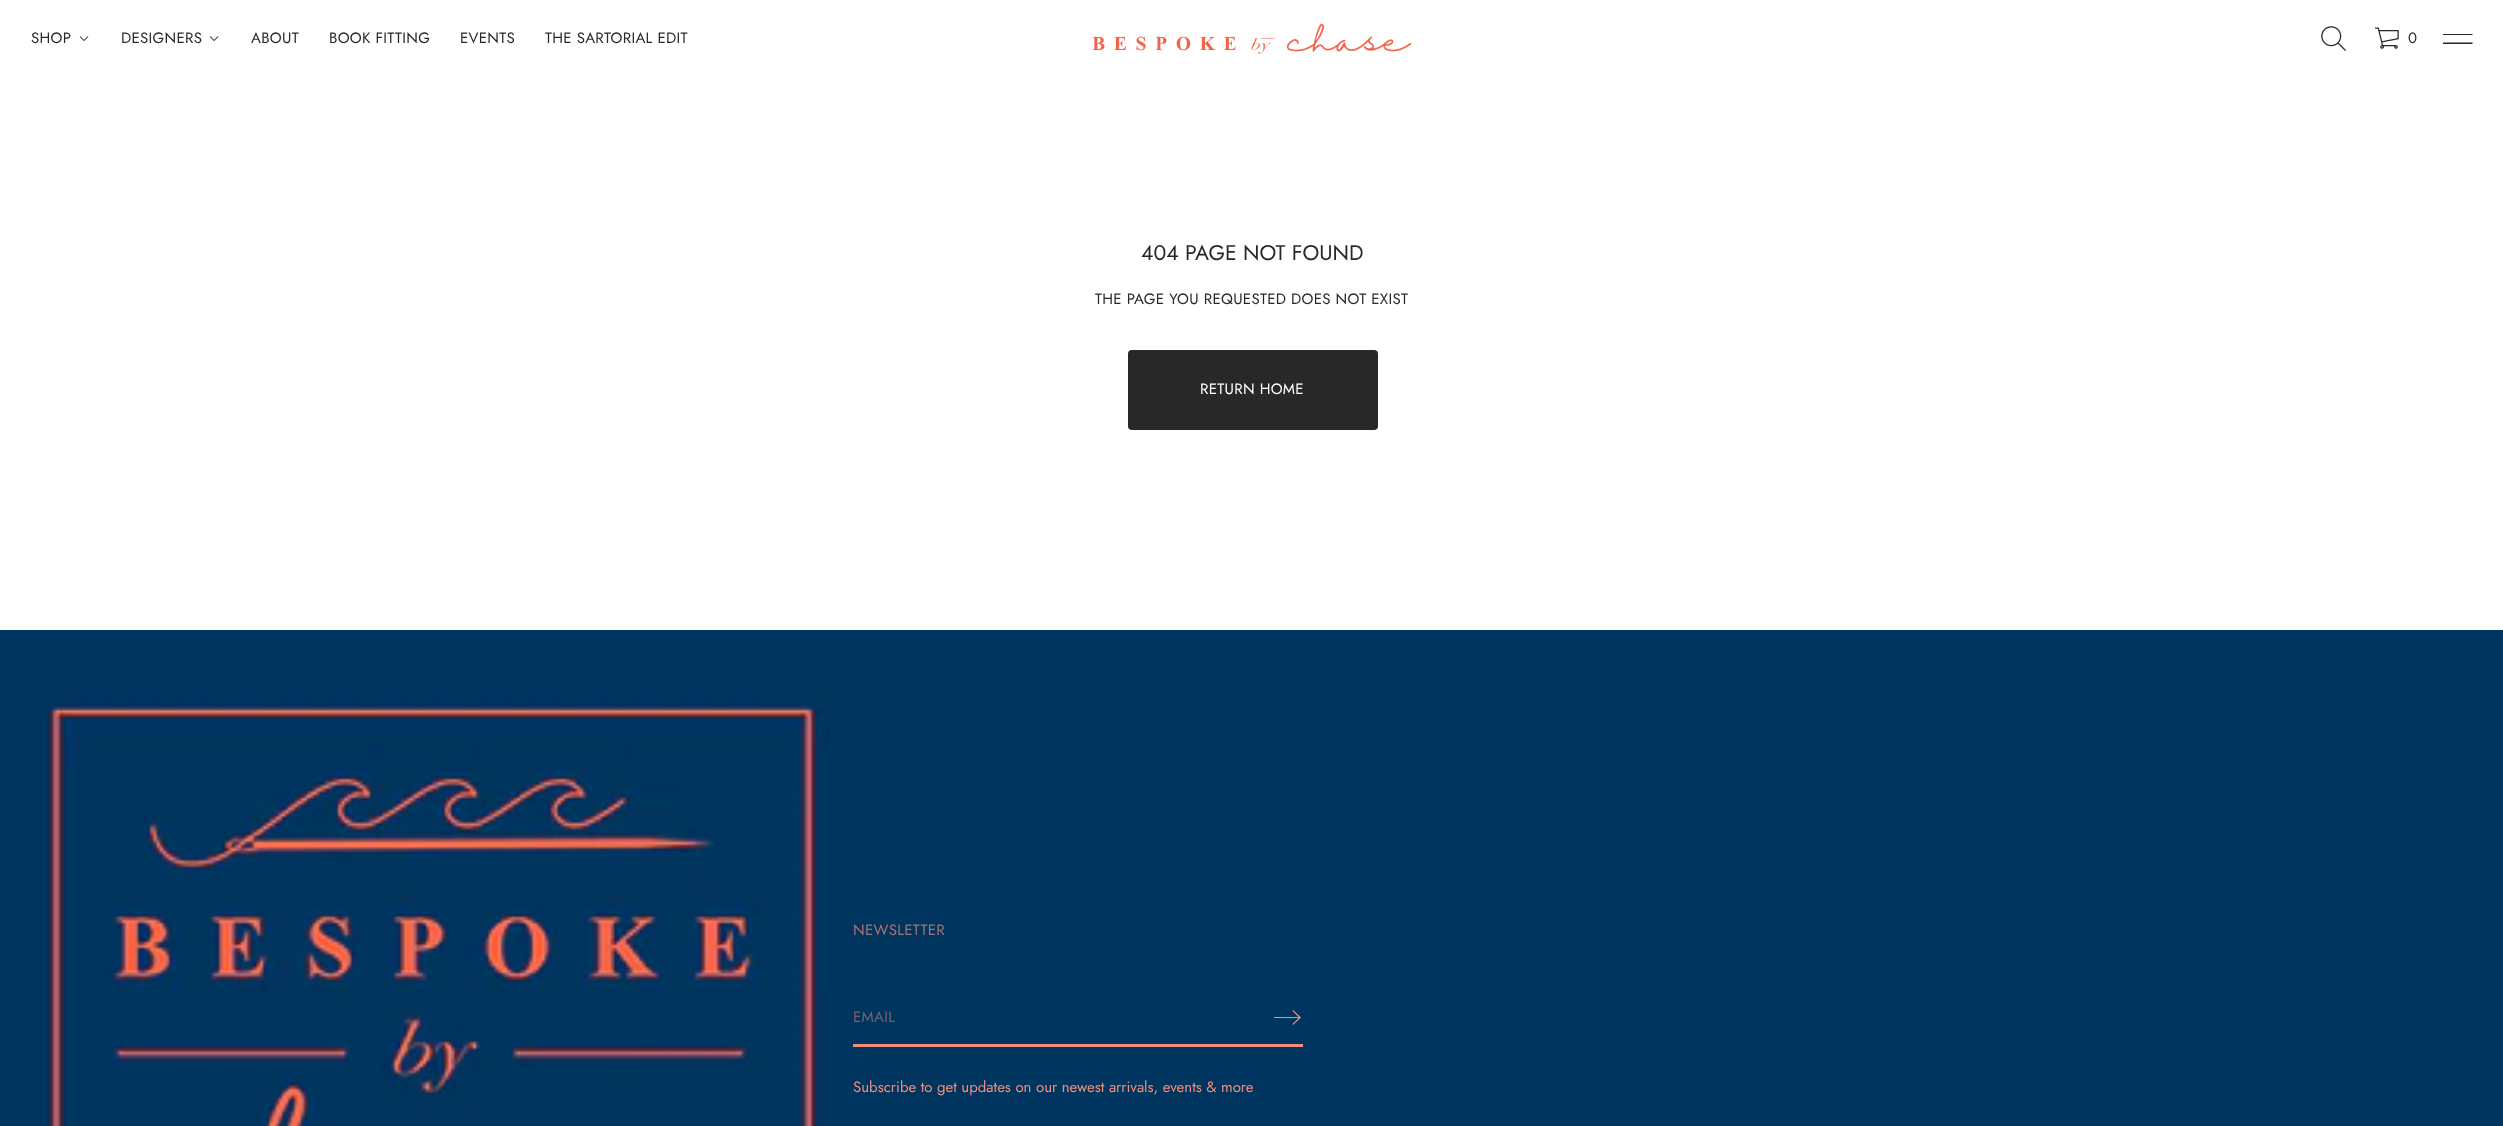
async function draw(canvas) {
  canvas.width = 2503
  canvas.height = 1126
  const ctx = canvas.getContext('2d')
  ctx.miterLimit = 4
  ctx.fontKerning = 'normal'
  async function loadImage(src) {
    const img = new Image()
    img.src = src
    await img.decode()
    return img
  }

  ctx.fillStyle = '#fff'
  ctx.fillRect(0, 0, 2503, 1126)
  ctx.letterSpacing = '0.3px'
  ctx.font = '15px Jost'
  ctx.fillStyle = '#282828'
  ctx.fillText('SHOP', 31, 43)
  ctx.drawImage(await loadImage('image0.png'), 79, 36, 10, 5)
  ctx.fillText('DESIGNERS', 121, 43)
  ctx.drawImage(await loadImage('image0.png'), 209, 36, 10, 5)
  ctx.fillText('ABOUT', 251, 43)
  ctx.fillText('BOOK FITTING', 329, 43)
  ctx.fillText('EVENTS', 460, 43)
  ctx.fillText('THE SARTORIAL EDIT', 545, 43)
  ctx.drawImage(await loadImage('image1.png'), 1092, 23, 320, 31)
  ctx.drawImage(await loadImage('image2.png'), 2321, 26, 25, 25)
  ctx.drawImage(await loadImage('image3.png'), 2375, 27, 24, 22)
  ctx.fillText('0', 2408, 43)
  ctx.save()
  ctx.beginPath()
  ctx.rect(2443, 24, 30, 30)
  ctx.clip()
  ctx.beginPath()
  ctx.moveTo(2442.5, 34)
  ctx.lineTo(2442.5, 35)
  ctx.lineTo(2472.5, 35)
  ctx.lineTo(2472.5, 34)
  ctx.closePath()
  ctx.moveTo(2442.5, 44)
  ctx.lineTo(2472.5, 44)
  ctx.lineTo(2472.5, 42.5)
  ctx.lineTo(2442.5, 42.5)
  ctx.closePath()
  ctx.fill()
  ctx.restore()
  ctx.letterSpacing = '0px'
  ctx.font = '21.25px Jost'
  ctx.fillText('404 PAGE NOT FOUND', 1141, 260)
  ctx.letterSpacing = '0.3px'
  ctx.font = '15px Jost'
  ctx.fillText('THE PAGE YOU REQUESTED DOES NOT EXIST', 1095, 304)
  ctx.beginPath()
  ctx.roundRect(1128, 350, 250, 80, 4)
  ctx.fill()
  ctx.fillStyle = '#fff'
  ctx.fillText('RETURN HOME', 1200, 394)
  ctx.fillStyle = '#00355f'
  ctx.fillRect(0, 630, 2503, 496)
  ctx.drawImage(await loadImage('image4.png'), 35, 691, 795, 435)
  ctx.fillStyle = '#ab7373'
  ctx.fillText('NEWSLETTER', 853, 935)
  ctx.fillStyle = '#f48e7b'
  ctx.fillRect(853, 1044, 450, 3)
  ctx.fillStyle = '#7a626d'
  ctx.fillText('EMAIL', 853, 1022)
  ctx.fillStyle = '#f48e7b'
  ctx.beginPath()
  ctx.moveTo(1292.5, 1011)
  ctx.lineTo(1298.5, 1017)
  ctx.lineTo(1274, 1017)
  ctx.lineTo(1274, 1018)
  ctx.lineTo(1298.5, 1018)
  ctx.lineTo(1292.5, 1024)
  ctx.lineTo(1293, 1025)
  ctx.lineTo(1301, 1017.5)
  ctx.lineTo(1293, 1010)
  ctx.closePath()
  ctx.fill()
  ctx.letterSpacing = '0px'
  ctx.fillText('Subscribe to get updates on our newest arrivals, events & more', 853, 1092)
}

draw(document.querySelector('canvas'))
